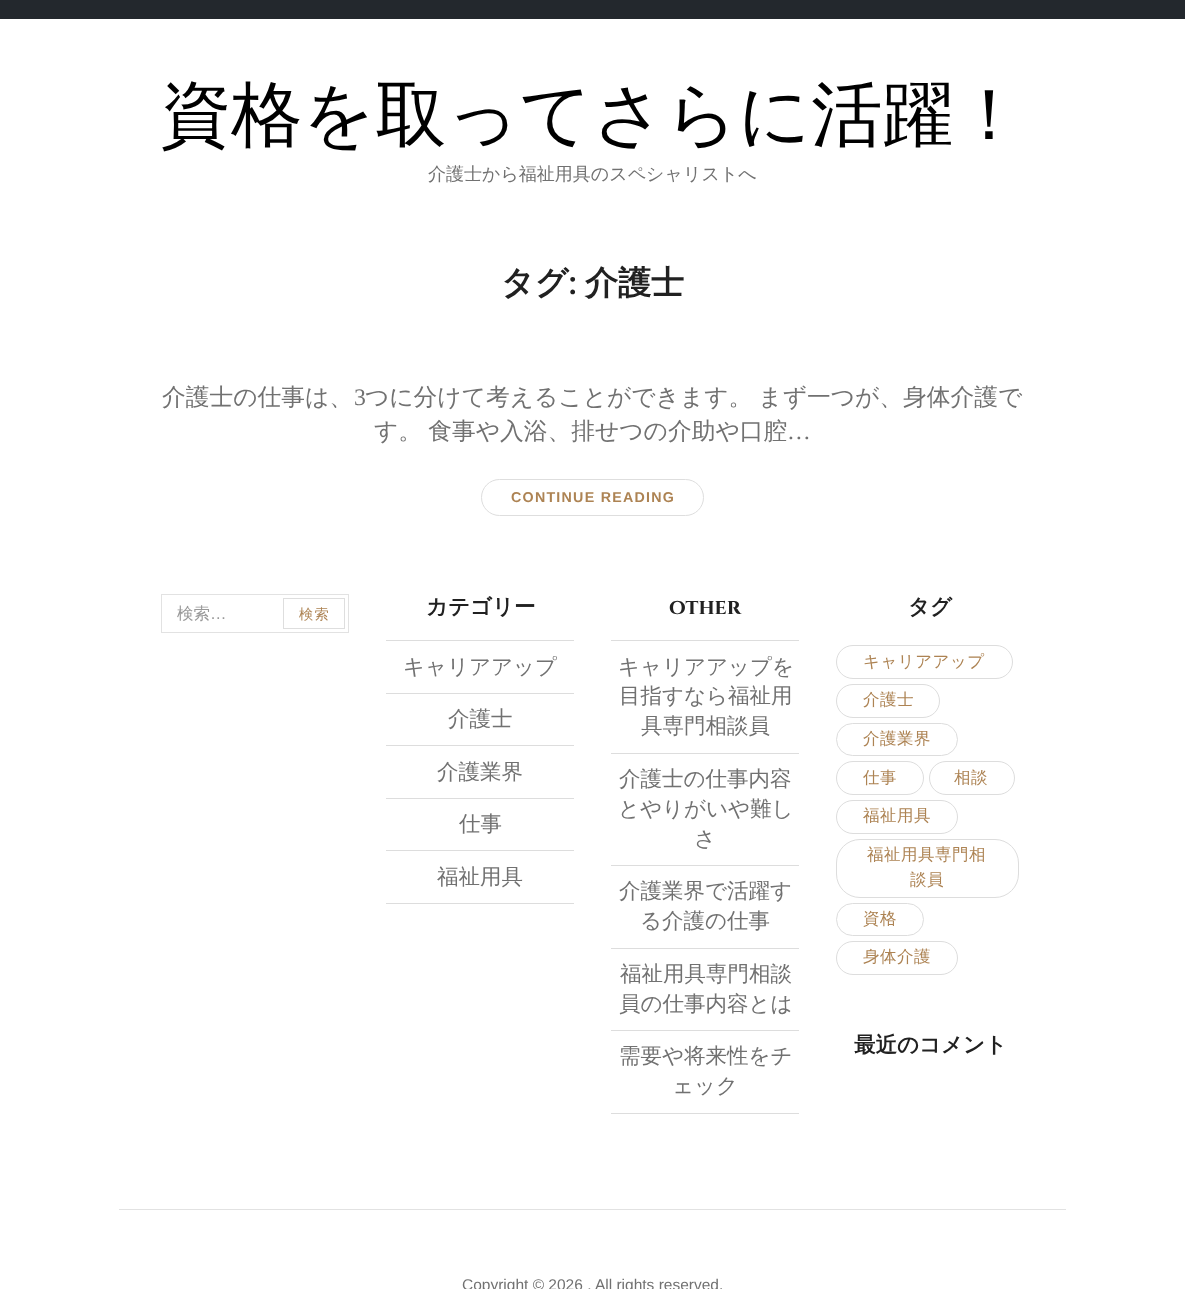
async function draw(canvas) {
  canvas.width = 1185
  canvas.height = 1289
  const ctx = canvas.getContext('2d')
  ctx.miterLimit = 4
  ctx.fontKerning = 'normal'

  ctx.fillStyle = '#fff'
  ctx.fillRect(0, 0, 1185, 1289)
  ctx.fillStyle = '#23282d'
  ctx.fillRect(0, 0, 1185, 19)
  ctx.font = '500 71.25px WenQuanYi Zen Hei'
  ctx.fillStyle = '#000'
  ctx.fillText('資格を取ってさらに活躍！', 160, 139)
  ctx.font = '500 18px WenQuanYi Zen Hei'
  ctx.fillStyle = '#717171'
  ctx.fillText('介護士から福祉用具のスペシャリストへ', 428, 180)
  ctx.font = 'bold 33px WenQuanYi Zen Hei'
  ctx.fillStyle = '#212121'
  ctx.fillText('タグ', 501, 294)
  ctx.font = 'bold 33px Cinzel'
  ctx.fillText(':', 569, 294)
  ctx.font = 'bold 33px WenQuanYi Zen Hei'
  ctx.fillText('介護士', 585, 294)
  ctx.font = '500 23.75px WenQuanYi Zen Hei'
  ctx.fillStyle = '#717171'
  ctx.fillText('介護士の仕事は、', 162, 405)
  ctx.font = '23.75px Liberation Serif'
  ctx.fillText('3', 354, 405)
  ctx.wordSpacing = '-1px'
  ctx.font = '500 23.75px WenQuanYi Zen Hei'
  ctx.fillText('つに分けて考えることができます。 まず一つが、身体介護で', 365, 405)
  ctx.fillText('す。 食事や入浴、排せつの介助や口腔', 374, 439)
  ctx.wordSpacing = '0px'
  ctx.font = '23.75px Liberation Serif'
  ctx.fillText('…', 787, 439)
  ctx.beginPath()
  ctx.roundRect(481.5, 479.5, 222, 36, 18)
  ctx.strokeStyle = '#dedede'
  ctx.stroke()
  ctx.letterSpacing = '1.25px'
  ctx.font = 'bold 14.25px Liberation Sans'
  ctx.fillStyle = '#ad8353'
  ctx.fillText('CONTINUE READING', 511, 502)
  ctx.strokeStyle = '#e2e2e2'
  ctx.strokeRect(161.5, 594.5, 187, 38)
  ctx.letterSpacing = '0px'
  ctx.font = '500 16.5px WenQuanYi Zen Hei'
  ctx.fillStyle = '#999'
  ctx.fillText('検索', 177, 619)
  ctx.font = '16.5px Liberation Sans'
  ctx.fillText('…', 210, 619)
  ctx.strokeStyle = '#dedede'
  ctx.strokeRect(283.5, 598.5, 61, 30)
  ctx.letterSpacing = '1.25px'
  ctx.font = '500 14.25px WenQuanYi Zen Hei'
  ctx.fillStyle = '#ad8353'
  ctx.fillText('検索', 299, 619)
  ctx.letterSpacing = '0px'
  ctx.font = 'bold 21.5px WenQuanYi Zen Hei'
  ctx.fillStyle = '#212121'
  ctx.fillText('カテゴリー', 426, 614)
  ctx.fillStyle = '#ddd'
  ctx.fillRect(386, 640, 188, 1)
  ctx.fillRect(386, 693, 188, 1)
  ctx.font = '500 21.5px WenQuanYi Zen Hei'
  ctx.fillStyle = '#717171'
  ctx.fillText('キャリアアップ', 403, 674)
  ctx.fillStyle = '#ddd'
  ctx.fillRect(386, 745, 188, 1)
  ctx.fillStyle = '#717171'
  ctx.fillText('介護士', 448, 726)
  ctx.fillStyle = '#ddd'
  ctx.fillRect(386, 798, 188, 1)
  ctx.fillStyle = '#717171'
  ctx.fillText('介護業界', 437, 779)
  ctx.fillStyle = '#ddd'
  ctx.fillRect(386, 850, 188, 1)
  ctx.fillStyle = '#717171'
  ctx.fillText('仕事', 459, 831)
  ctx.fillStyle = '#ddd'
  ctx.fillRect(386, 903, 188, 1)
  ctx.fillStyle = '#717171'
  ctx.fillText('福祉用具', 437, 884)
  ctx.font = 'bold 21.5px Cinzel'
  ctx.fillStyle = '#212121'
  ctx.fillText('other', 669, 614)
  ctx.fillStyle = '#ddd'
  ctx.fillRect(611, 640, 188, 1)
  ctx.fillRect(611, 753, 188, 1)
  ctx.font = '500 21.5px WenQuanYi Zen Hei'
  ctx.fillStyle = '#717171'
  ctx.fillText('キャリアアップを', 618, 674)
  ctx.fillText('目指すなら福祉用', 619, 703)
  ctx.fillText('具専門相談員', 641, 733)
  ctx.fillStyle = '#ddd'
  ctx.fillRect(611, 865, 188, 1)
  ctx.fillStyle = '#717171'
  ctx.fillText('介護士の仕事内容', 619, 786)
  ctx.fillText('とやりがいや難し', 618, 816)
  ctx.fillText('さ', 694, 846)
  ctx.fillStyle = '#ddd'
  ctx.fillRect(611, 948, 188, 1)
  ctx.fillStyle = '#717171'
  ctx.fillText('介護業界で活躍す', 619, 898)
  ctx.fillText('る介護の仕事', 640, 928)
  ctx.fillStyle = '#ddd'
  ctx.fillRect(611, 1030, 188, 1)
  ctx.fillStyle = '#717171'
  ctx.fillText('福祉用具専門相談', 620, 981)
  ctx.fillText('員の仕事内容とは', 619, 1011)
  ctx.fillStyle = '#ddd'
  ctx.fillRect(611, 1113, 188, 1)
  ctx.fillStyle = '#717171'
  ctx.fillText('需要や将来性をチ', 619, 1063)
  ctx.fillText('ェック', 672, 1093)
  ctx.font = 'bold 21.5px WenQuanYi Zen Hei'
  ctx.fillStyle = '#212121'
  ctx.fillText('タグ', 908, 614)
  ctx.beginPath()
  ctx.roundRect(836.5, 645.5, 176, 33, 16.5)
  ctx.strokeStyle = '#ddd'
  ctx.stroke()
  ctx.letterSpacing = '0.5px'
  ctx.font = '500 16.5px WenQuanYi Zen Hei'
  ctx.fillStyle = '#ad8353'
  ctx.fillText('キャリアアップ', 863, 667)
  ctx.beginPath()
  ctx.roundRect(836.5, 684.5, 103, 33, 16.5)
  ctx.stroke()
  ctx.fillText('介護士', 863, 705)
  ctx.beginPath()
  ctx.roundRect(836.5, 723.5, 121, 32, 16)
  ctx.stroke()
  ctx.fillText('介護業界', 863, 744)
  ctx.beginPath()
  ctx.roundRect(836.5, 761.5, 87, 33, 16.5)
  ctx.stroke()
  ctx.fillText('仕事', 863, 783)
  ctx.beginPath()
  ctx.roundRect(929.5, 761.5, 85, 33, 16.5)
  ctx.stroke()
  ctx.fillText('相談', 954, 783)
  ctx.beginPath()
  ctx.roundRect(836.5, 800.5, 121, 33, 16.5)
  ctx.stroke()
  ctx.fillText('福祉用具', 863, 821)
  ctx.beginPath()
  ctx.roundRect(836.5, 839.5, 182, 58, 23.5)
  ctx.stroke()
  ctx.fillText('福祉用具専門相', 867, 860)
  ctx.fillText('談員', 910, 885)
  ctx.beginPath()
  ctx.roundRect(836.5, 903.5, 87, 32, 16)
  ctx.stroke()
  ctx.fillText('資格', 863, 924)
  ctx.beginPath()
  ctx.roundRect(836.5, 941.5, 121, 33, 16.5)
  ctx.stroke()
  ctx.fillText('身体介護', 863, 962)
  ctx.letterSpacing = '0px'
  ctx.font = 'bold 21.5px WenQuanYi Zen Hei'
  ctx.fillStyle = '#212121'
  ctx.fillText('最近のコメント', 854, 1052)
  ctx.fillStyle = '#e2e2e2'
  ctx.fillRect(119, 1209, 947, 1)
  ctx.font = '15.5px Liberation Sans'
  ctx.fillStyle = '#717171'
  ctx.fillText('Copyright © 2026 . All rights reserved.', 462, 1290)
}

draw(document.querySelector('canvas'))
